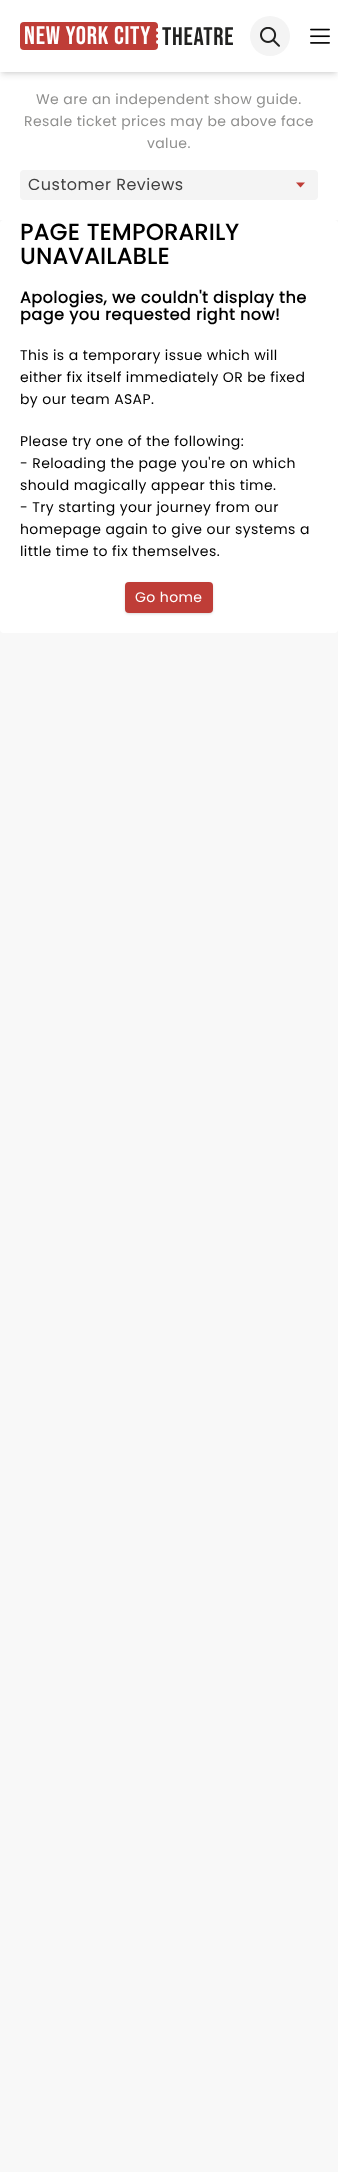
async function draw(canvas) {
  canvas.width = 338
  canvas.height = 2172
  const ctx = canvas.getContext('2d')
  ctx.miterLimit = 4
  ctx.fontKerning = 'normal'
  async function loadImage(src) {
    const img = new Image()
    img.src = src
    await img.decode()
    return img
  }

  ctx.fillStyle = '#f8f8f8'
  ctx.fillRect(0, 0, 338, 2172)
  ctx.fillStyle = '#fff'
  ctx.fillRect(0, 72, 338, 148)
  ctx.fillStyle = '#0000001a'
  ctx.filter = 'blur(2px)'
  ctx.beginPath()
  ctx.rect(2, 4, 334, 68)
  ctx.fill()
  ctx.filter = 'none'
  ctx.filter = 'blur(3px)'
  ctx.beginPath()
  ctx.rect(1, 5, 336, 70)
  ctx.fill()
  ctx.filter = 'none'
  ctx.fillStyle = '#fff'
  ctx.fillRect(0, 0, 338, 72)
  ctx.fillStyle = '#bf3d37'
  ctx.beginPath()
  ctx.roundRect(20, 22, 138, 28, 4)
  ctx.fill()
  ctx.letterSpacing = '0.75px'
  ctx.font = '25.5px Bebas Neue'
  ctx.fillStyle = '#fff'
  ctx.fillText('New York City', 24, 44)
  ctx.beginPath()
  ctx.arc(158, 30, 2, 0, 2 * Math.PI)
  ctx.fill()
  ctx.beginPath()
  ctx.arc(158, 36, 2, 0, 2 * Math.PI)
  ctx.fill()
  ctx.beginPath()
  ctx.arc(158, 42, 2, 0, 2 * Math.PI)
  ctx.fill()
  ctx.fillStyle = '#212120'
  ctx.fillText('Theatre', 162, 45)
  ctx.fillStyle = '#f4f4f4'
  ctx.beginPath()
  ctx.arc(270, 36, 20, 0, 2 * Math.PI)
  ctx.fill()
  ctx.drawImage(await loadImage('image0.png'), 260, 27, 20, 20)
  ctx.drawImage(await loadImage('image1.png'), 310, 28, 20, 16)
  ctx.letterSpacing = '0.4px'
  ctx.font = '14px Poppins'
  ctx.fillStyle = '#90908f'
  ctx.fillText('We are an independent show guide.', 36, 104)
  ctx.fillText('Resale ticket prices may be above face', 24, 126)
  ctx.fillText('value.', 147, 148)
  ctx.fillStyle = '#f4f4f4'
  ctx.beginPath()
  ctx.roundRect(20, 170, 298, 30, 4)
  ctx.fill()
  ctx.letterSpacing = '0.5px'
  ctx.font = '16px Poppins'
  ctx.fillStyle = '#404040'
  ctx.fillText('Customer Reviews', 28, 190)
  ctx.fillStyle = '#bf3d37'
  ctx.beginPath()
  ctx.moveTo(300.5, 187.5)
  ctx.lineTo(296, 182.5)
  ctx.lineTo(305, 182.5)
  ctx.closePath()
  ctx.fill()
  ctx.fillStyle = '#fff'
  ctx.beginPath()
  ctx.roundRect(0, 220, 338, 413, 4)
  ctx.fill()
  ctx.letterSpacing = '0.7px'
  ctx.font = 'bold 22.5px Poppins'
  ctx.fillStyle = '#000'
  ctx.fillText('PAGE TEMPORARILY', 20, 240)
  ctx.fillText('UNAVAILABLE', 20, 264)
  ctx.letterSpacing = '0.5px'
  ctx.font = 'bold 16px Poppins'
  ctx.fillText('Apologies, we couldn\'t display the', 20, 303)
  ctx.fillText('page you requested right now!', 20, 320)
  ctx.letterSpacing = '0.4px'
  ctx.font = '14px Poppins'
  ctx.fillText('This is a temporary issue which will', 20, 360)
  ctx.fillText('either fix itself immediately OR be fixed', 20, 382)
  ctx.fillText('by our team ASAP.', 20, 404)
  ctx.fillText('Please try one of the following:', 20, 446)
  ctx.fillText('- Reloading the page you\'re on which', 20, 468)
  ctx.fillText('should magically appear this time.', 20, 490)
  ctx.fillText('- Try starting your journey from our', 20, 512)
  ctx.fillText('homepage again to give our systems a', 20, 534)
  ctx.fillText('little time to fix themselves.', 20, 556)
  ctx.fillStyle = '#0000001a'
  ctx.filter = 'blur(1px)'
  ctx.beginPath()
  ctx.roundRect(126, 584, 86, 29, 3)
  ctx.fill()
  ctx.filter = 'none'
  ctx.filter = 'blur(1.5px)'
  ctx.beginPath()
  ctx.roundRect(125, 583, 88, 31, 4)
  ctx.fill()
  ctx.filter = 'none'
  ctx.fillStyle = '#bf3d37'
  ctx.beginPath()
  ctx.roundRect(125, 582, 88, 31, 4)
  ctx.fill()
  ctx.fillStyle = '#fff'
  ctx.fillText('Go home', 135, 602)
}

draw(document.querySelector('canvas'))
